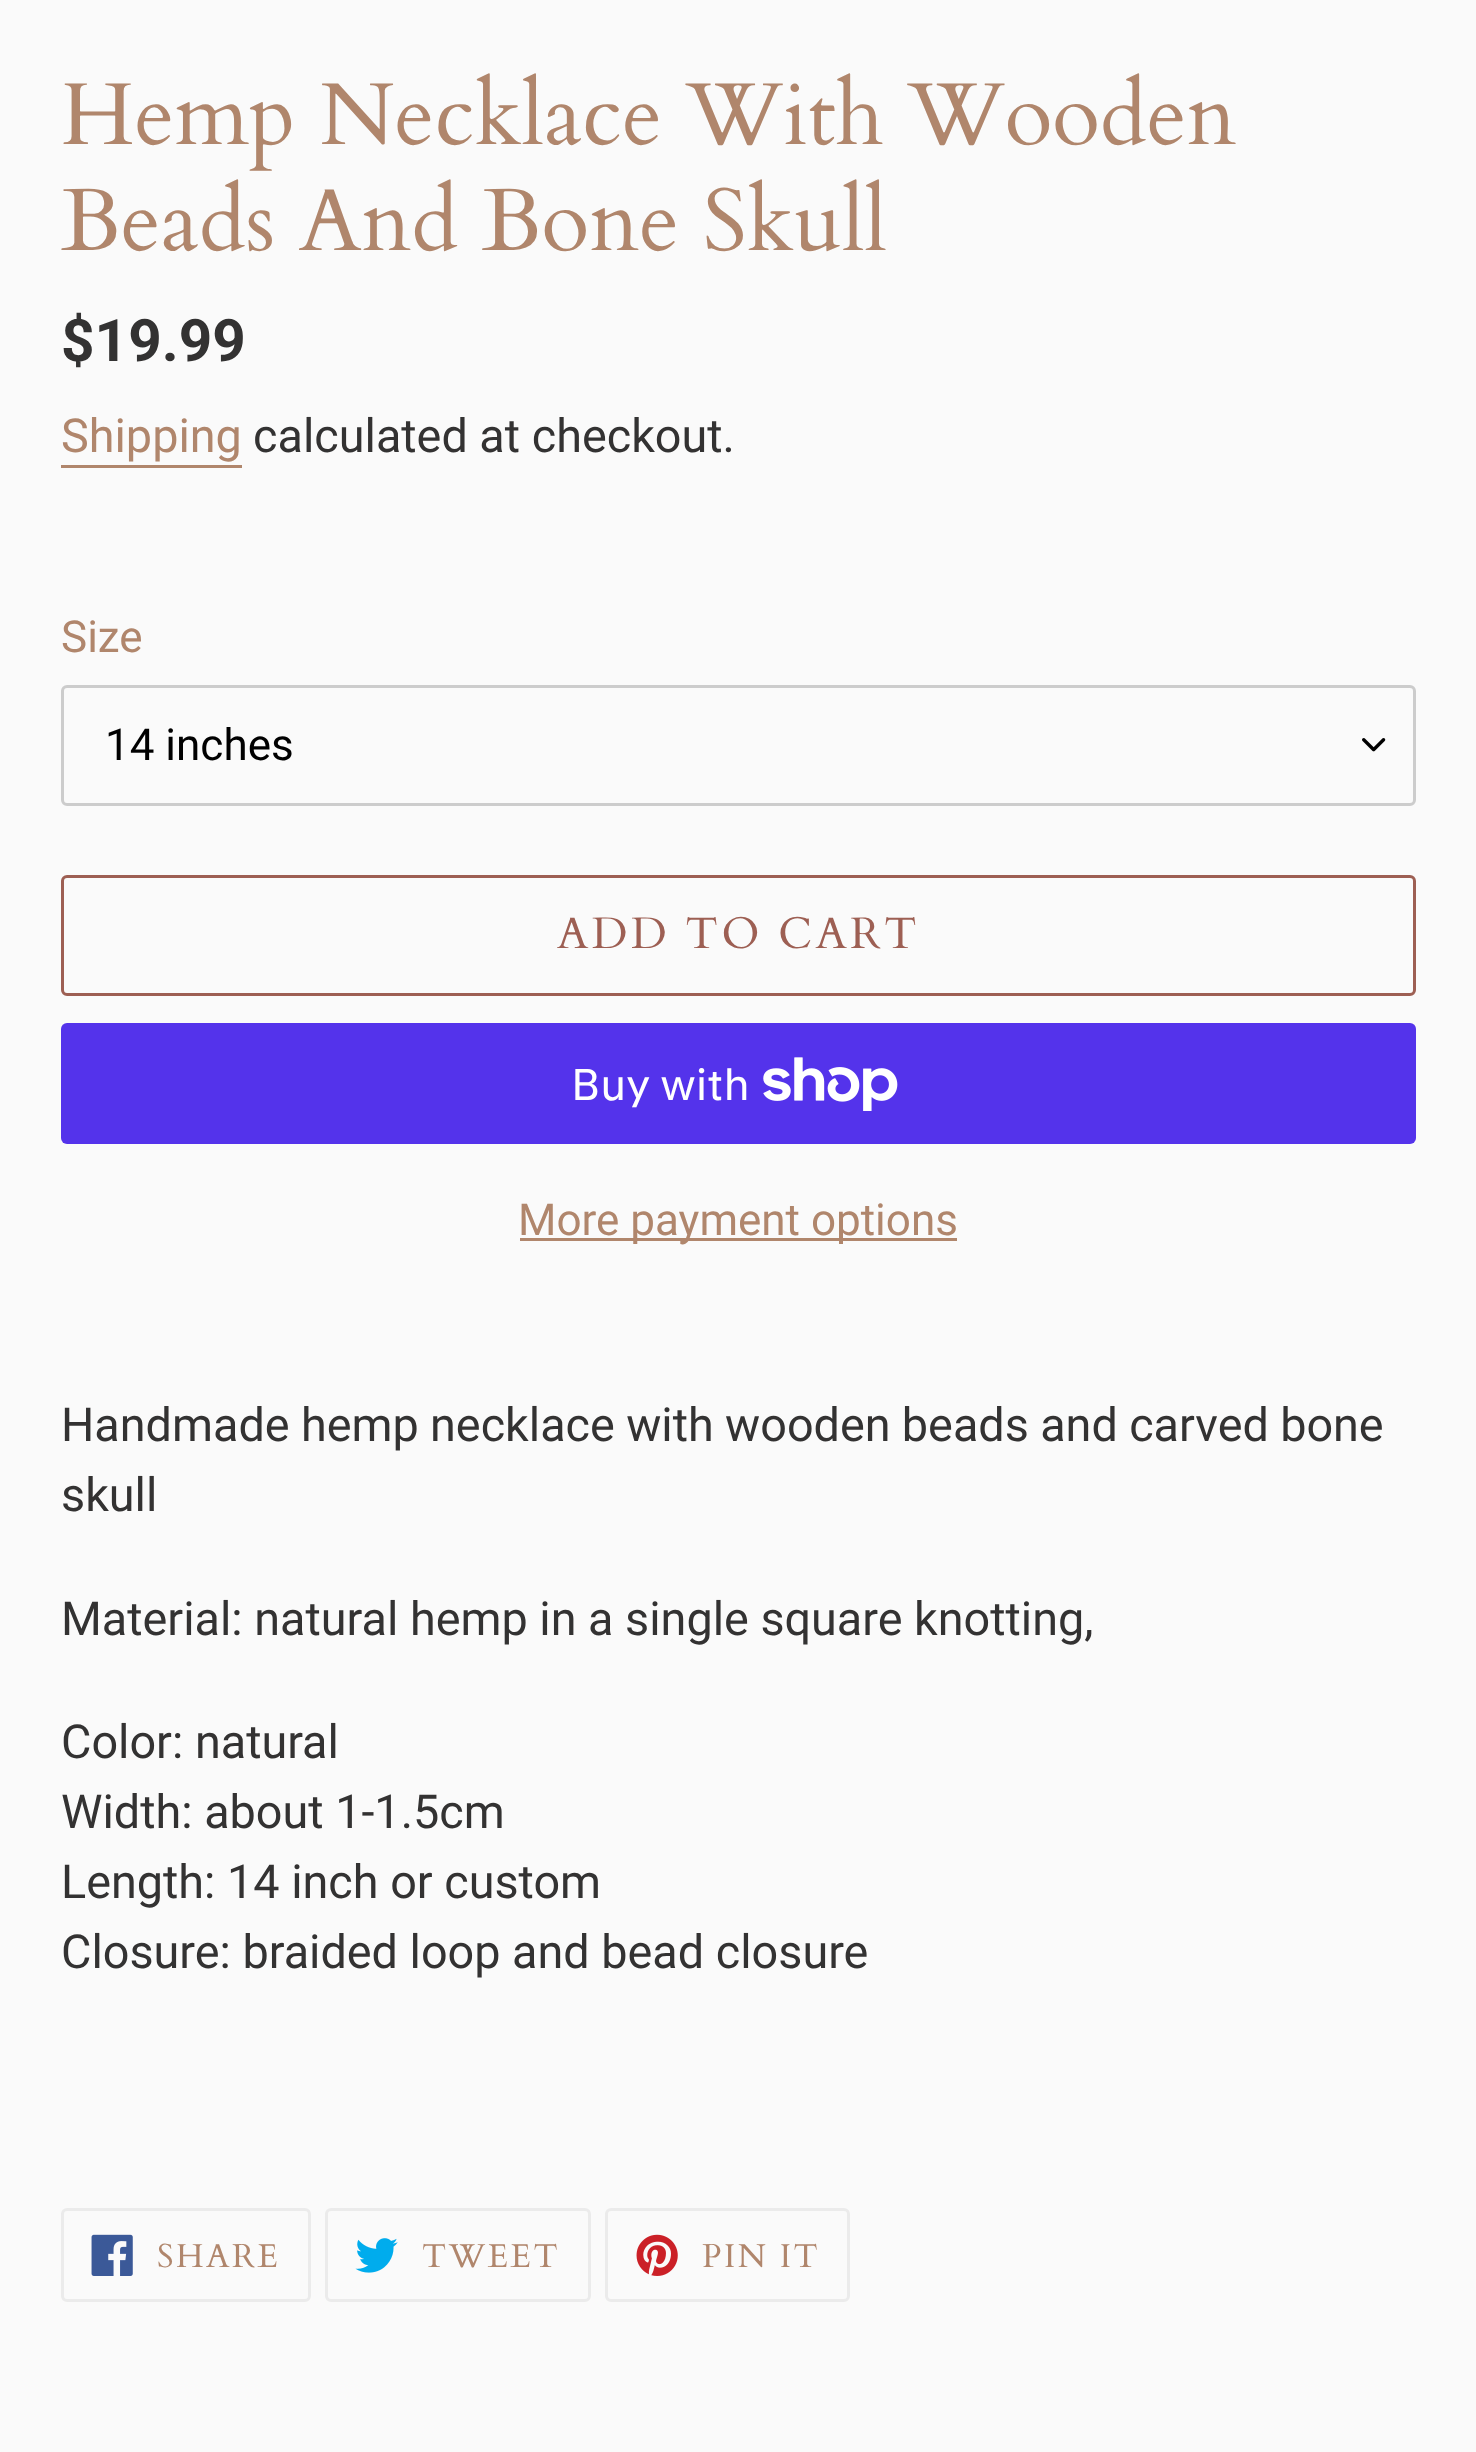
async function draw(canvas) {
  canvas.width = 1476
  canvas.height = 2452
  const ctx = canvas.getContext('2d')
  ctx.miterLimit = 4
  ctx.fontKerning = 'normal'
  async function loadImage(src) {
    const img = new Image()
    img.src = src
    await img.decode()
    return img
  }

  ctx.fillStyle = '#fafafa'
  ctx.fillRect(0, 0, 1476, 2452)
  ctx.font = '88px Cardo'
  ctx.fillStyle = '#b0866c'
  ctx.fillText('Hemp Necklace With Wooden', 61, 144)
  ctx.fillText('Beads And Bone Skull', 61, 250)
  ctx.font = 'bold 58.5px Roboto'
  ctx.fillStyle = '#333232'
  ctx.fillText('$19.99', 61, 361)
  ctx.font = '46.75px Roboto'
  ctx.fillStyle = '#b0866c'
  ctx.fillText('Shipping', 61, 452)
  ctx.fillRect(61, 465, 181, 3)
  ctx.fillStyle = '#333232'
  ctx.fillText('calculated at checkout.', 253, 452)
  ctx.font = '44px Roboto'
  ctx.fillStyle = '#b0866c'
  ctx.fillText('Size', 61, 652)
  ctx.drawImage(await loadImage('image0.png'), 1362, 738, 24, 14)
  ctx.beginPath()
  ctx.roundRect(62.5, 686.5, 1352, 118, 4.5)
  ctx.strokeStyle = '#ccc'
  ctx.lineWidth = 3
  ctx.stroke()
  ctx.fillStyle = '#000'
  ctx.fillText('14 inches', 105, 760)
  ctx.beginPath()
  ctx.roundRect(62.5, 876.5, 1352, 118, 4.5)
  ctx.strokeStyle = '#9d5f53'
  ctx.stroke()
  ctx.letterSpacing = '3.5px'
  ctx.font = '44px Cardo'
  ctx.fillStyle = '#9d5f53'
  ctx.fillText('ADD TO CART', 557, 948)
  ctx.fillStyle = '#5433eb'
  ctx.beginPath()
  ctx.roundRect(61, 1023, 1355, 121, 6)
  ctx.fill()
  ctx.letterSpacing = '0px'
  ctx.font = '44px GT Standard'
  ctx.fillStyle = '#fff'
  ctx.fillText('Buy with', 571, 1100)
  ctx.drawImage(await loadImage('image1.png'), 763, 1057, 135, 54)
  ctx.fillStyle = '#b0866c'
  ctx.fillRect(520, 1238, 437, 3)
  ctx.font = '44px Roboto'
  ctx.fillText('More payment options', 518, 1235)
  ctx.wordSpacing = '-0.25px'
  ctx.font = '46.75px Roboto'
  ctx.fillStyle = '#333232'
  ctx.fillText('Handmade hemp necklace with wooden beads and carved bone', 61, 1441)
  ctx.wordSpacing = '0px'
  ctx.fillText('skull', 61, 1511)
  ctx.fillText('Material: natural hemp in a single square knotting,', 61, 1635)
  ctx.fillText('Color: natural', 61, 1758)
  ctx.fillText('Width: about 1-1.5cm', 61, 1828)
  ctx.fillText('Length: 14 inch or custom', 61, 1898)
  ctx.fillText('Closure: braided loop and bead closure', 61, 1968)
  ctx.beginPath()
  ctx.roundRect(62.5, 2209.5, 247, 91, 4.5)
  ctx.strokeStyle = '#ebebeb'
  ctx.stroke()
  ctx.drawImage(await loadImage('image2.png'), 91, 2234, 42, 42)
  ctx.letterSpacing = '2.5px'
  ctx.font = '33px Cardo'
  ctx.fillStyle = '#b0866c'
  ctx.fillText('SHARE', 157, 2267)
  ctx.beginPath()
  ctx.roundRect(326.5, 2209.5, 263, 91, 4.5)
  ctx.stroke()
  ctx.drawImage(await loadImage('image3.png'), 355, 2238, 43, 35)
  ctx.fillText('TWEET', 422, 2267)
  ctx.beginPath()
  ctx.roundRect(606.5, 2209.5, 242, 91, 4.5)
  ctx.stroke()
  ctx.drawImage(await loadImage('image4.png'), 636, 2234, 42, 42)
  ctx.fillText('PIN IT', 702, 2267)
}

draw(document.querySelector('canvas'))
